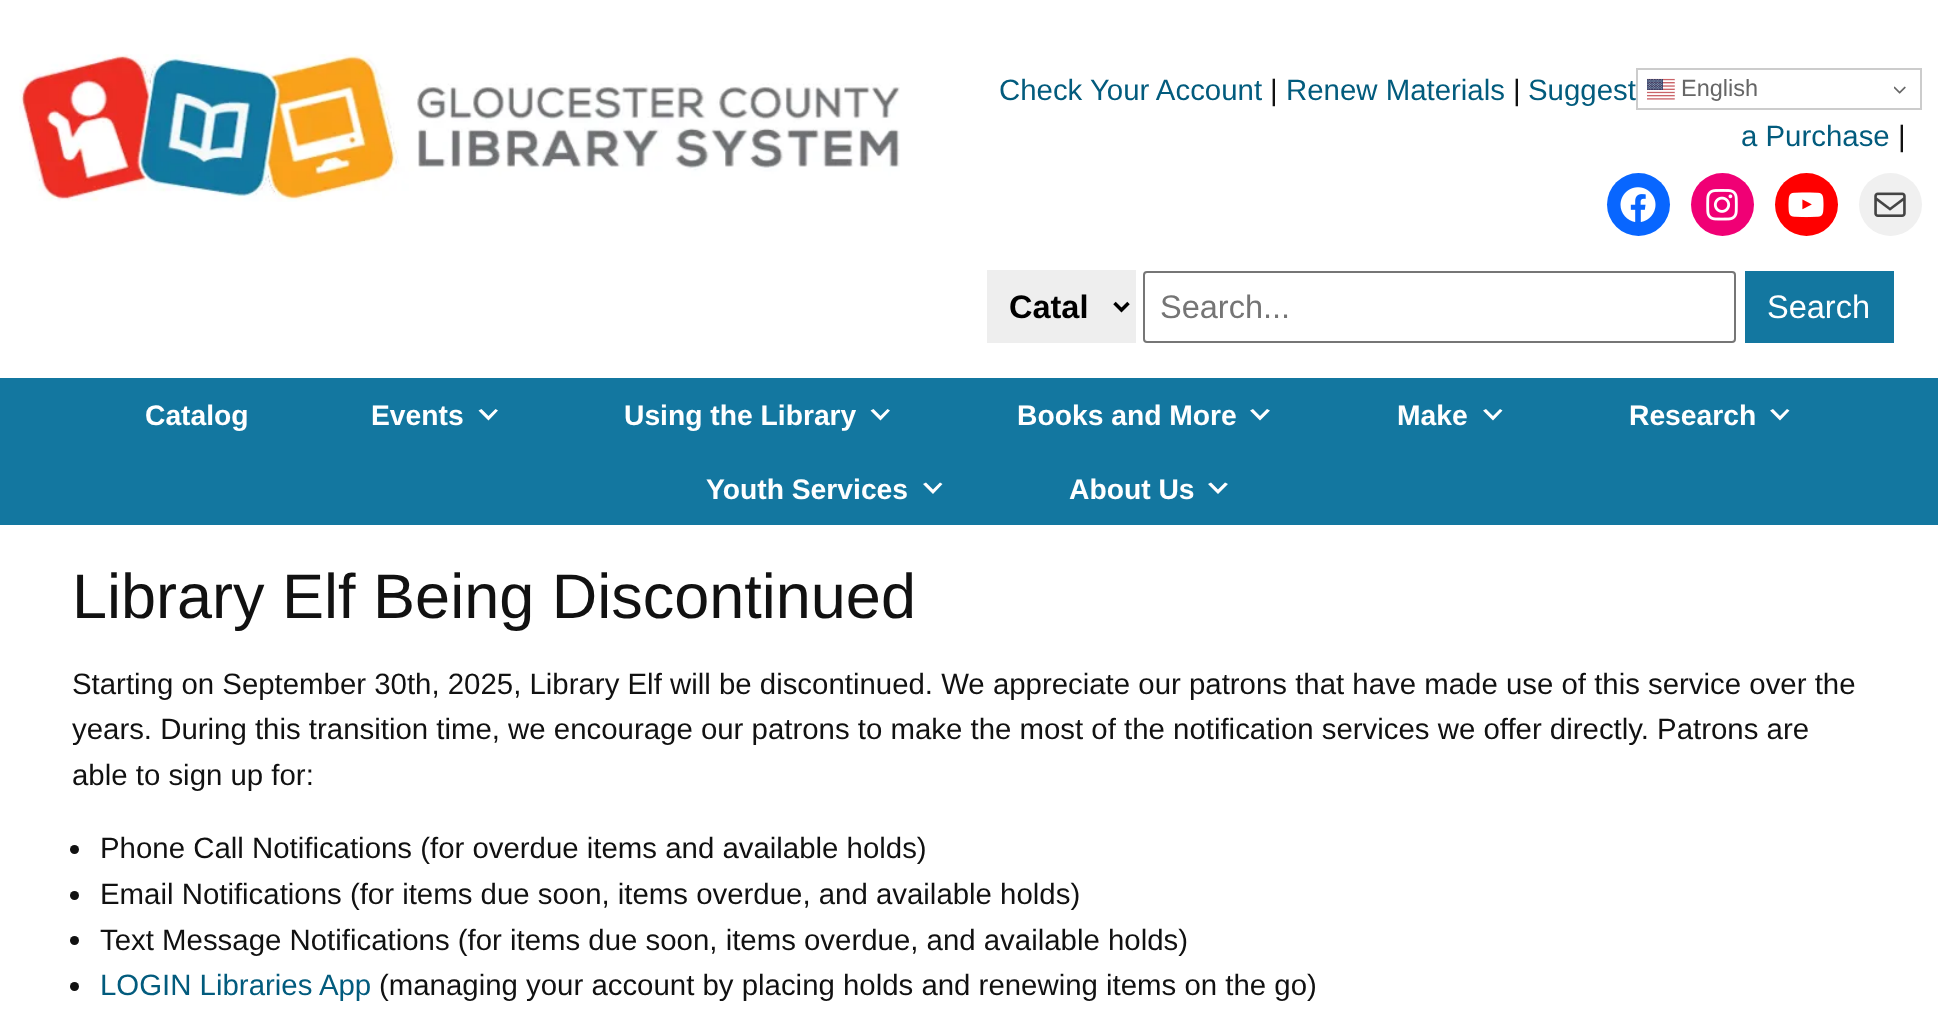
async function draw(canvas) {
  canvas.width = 1938
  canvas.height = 1027
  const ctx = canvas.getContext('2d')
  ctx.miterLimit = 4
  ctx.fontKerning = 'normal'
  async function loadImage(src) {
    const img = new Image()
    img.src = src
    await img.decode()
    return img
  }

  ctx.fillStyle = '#fff'
  ctx.fillRect(0, 0, 1938, 1027)
  ctx.drawImage(await loadImage('image0.png'), 19, 54, 881, 148)
  ctx.font = '29.4px Liberation Sans'
  ctx.fillStyle = '#025b7d'
  ctx.fillText('Check Your Account', 999, 100)
  ctx.fillStyle = '#111'
  ctx.fillText('|', 1270, 100)
  ctx.fillStyle = '#025b7d'
  ctx.fillText('Renew Materials', 1286, 100)
  ctx.fillStyle = '#111'
  ctx.fillText('|', 1513, 100)
  ctx.fillStyle = '#025b7d'
  ctx.fillText('Suggest', 1528, 100)
  ctx.fillText('a Purchase', 1741, 146)
  ctx.fillStyle = '#111'
  ctx.fillText('|', 1898, 146)
  ctx.strokeStyle = '#ccc'
  ctx.lineWidth = 2
  ctx.strokeRect(1637, 69, 284, 40)
  ctx.drawImage(await loadImage('image1.png'), 1647, 78, 28, 22)
  ctx.font = '23.5px Liberation Sans'
  ctx.fillStyle = '#666'
  ctx.fillText('English', 1681, 96)
  ctx.drawImage(await loadImage('image2.png'), 1894, 86, 12, 8)
  ctx.fillStyle = '#0866ff'
  ctx.beginPath()
  ctx.arc(1638.5, 204.5, 31.5, 0, 2 * Math.PI)
  ctx.fill()
  ctx.drawImage(await loadImage('image3.png'), 1620, 187, 36, 35)
  ctx.fillStyle = '#f00075'
  ctx.beginPath()
  ctx.arc(1722.5, 204.5, 31.5, 0, 2 * Math.PI)
  ctx.fill()
  ctx.drawImage(await loadImage('image4.png'), 1706, 189, 32, 32)
  ctx.fillStyle = '#f00'
  ctx.beginPath()
  ctx.arc(1806.5, 204.5, 31.5, 0, 2 * Math.PI)
  ctx.fill()
  ctx.drawImage(await loadImage('image5.png'), 1788, 192, 36, 26)
  ctx.fillStyle = '#f0f0f0'
  ctx.beginPath()
  ctx.arc(1890.5, 204.5, 31.5, 0, 2 * Math.PI)
  ctx.fill()
  ctx.drawImage(await loadImage('image6.png'), 1874, 192, 32, 25)
  ctx.fillStyle = '#eee'
  ctx.fillRect(987, 270, 149, 73)
  ctx.beginPath()
  ctx.moveTo(1114.5, 303)
  ctx.lineTo(1121.5, 310)
  ctx.lineTo(1128.5, 303)
  ctx.strokeStyle = '#000'
  ctx.lineWidth = 3.5
  ctx.stroke()
  ctx.font = 'bold 32.5px Liberation Sans'
  ctx.fillStyle = '#000'
  ctx.fillText('Catal', 1009, 318)
  ctx.beginPath()
  ctx.roundRect(1144, 272, 591, 70, 3)
  ctx.strokeStyle = '#767676'
  ctx.lineWidth = 2
  ctx.stroke()
  ctx.font = '32.5px Liberation Sans'
  ctx.fillStyle = '#757575'
  ctx.fillText('Search...', 1160, 318)
  ctx.fillStyle = '#1377a0'
  ctx.fillRect(1745, 271, 149, 72)
  ctx.fillStyle = '#fff'
  ctx.fillText('Search', 1767, 318)
  ctx.fillStyle = '#1377a0'
  ctx.fillRect(0, 378, 1938, 147)
  ctx.font = 'bold 28.25px Liberation Sans'
  ctx.fillStyle = '#fff'
  ctx.fillText('Catalog', 145, 425)
  ctx.fillText('Events', 371, 425)
  ctx.beginPath()
  ctx.moveTo(481.5, 409)
  ctx.lineTo(488.5, 416)
  ctx.lineTo(495.5, 409)
  ctx.lineTo(498, 410.5)
  ctx.lineTo(488.5, 420.5)
  ctx.lineTo(478.5, 410.5)
  ctx.closePath()
  ctx.fill()
  ctx.fillText('Using the Library', 624, 425)
  ctx.beginPath()
  ctx.moveTo(873.5, 409)
  ctx.lineTo(880.5, 416)
  ctx.lineTo(887.5, 409)
  ctx.lineTo(890, 410.5)
  ctx.lineTo(880.5, 420.5)
  ctx.lineTo(870.5, 410.5)
  ctx.closePath()
  ctx.fill()
  ctx.fillText('Books and More', 1017, 425)
  ctx.beginPath()
  ctx.moveTo(1253, 409)
  ctx.lineTo(1260, 416)
  ctx.lineTo(1267, 409)
  ctx.lineTo(1270, 410.5)
  ctx.lineTo(1260, 420.5)
  ctx.lineTo(1250, 410.5)
  ctx.closePath()
  ctx.fill()
  ctx.fillText('Make', 1397, 425)
  ctx.beginPath()
  ctx.moveTo(1486, 409)
  ctx.lineTo(1493, 416)
  ctx.lineTo(1500, 409)
  ctx.lineTo(1502.5, 410.5)
  ctx.lineTo(1493, 420.5)
  ctx.lineTo(1483, 410.5)
  ctx.closePath()
  ctx.fill()
  ctx.fillText('Research', 1629, 425)
  ctx.beginPath()
  ctx.moveTo(1773, 409)
  ctx.lineTo(1780, 416)
  ctx.lineTo(1787, 409)
  ctx.lineTo(1789.5, 410.5)
  ctx.lineTo(1780, 420.5)
  ctx.lineTo(1770, 410.5)
  ctx.closePath()
  ctx.fill()
  ctx.fillText('Youth Services', 706, 499)
  ctx.beginPath()
  ctx.moveTo(926, 482.5)
  ctx.lineTo(933, 489.5)
  ctx.lineTo(940, 482.5)
  ctx.lineTo(942.5, 484)
  ctx.lineTo(933, 494)
  ctx.lineTo(923, 484)
  ctx.closePath()
  ctx.fill()
  ctx.fillText('About Us', 1069, 499)
  ctx.beginPath()
  ctx.moveTo(1211, 482.5)
  ctx.lineTo(1218, 489.5)
  ctx.lineTo(1225, 482.5)
  ctx.lineTo(1228, 484)
  ctx.lineTo(1218, 494)
  ctx.lineTo(1208, 484)
  ctx.closePath()
  ctx.fill()
  ctx.font = '63px Liberation Sans'
  ctx.fillStyle = '#111'
  ctx.fillText('Library Elf Being Discontinued', 72, 618)
  ctx.font = '29.4px Liberation Sans'
  ctx.fillText('Starting on September 30th, 2025, Library Elf will be discontinued. We appreciate our patrons that have made use of this service over the', 72, 694)
  ctx.fillText('years. During this transition time, we encourage our patrons to make the most of the notification services we offer directly. Patrons are', 72, 739)
  ctx.fillText('able to sign up for:', 72, 785)
  ctx.beginPath()
  ctx.arc(74.5, 849.5, 4.5, 0, 2 * Math.PI)
  ctx.fill()
  ctx.fillText('Phone Call Notifications (for overdue items and available holds)', 100, 858)
  ctx.beginPath()
  ctx.arc(74.5, 895.5, 4.5, 0, 2 * Math.PI)
  ctx.fill()
  ctx.fillText('Email Notifications (for items due soon, items overdue, and available holds)', 100, 904)
  ctx.beginPath()
  ctx.arc(74.5, 940.5, 4.5, 0, 2 * Math.PI)
  ctx.fill()
  ctx.fillText('Text Message Notifications (for items due soon, items overdue, and available holds)', 100, 950)
  ctx.beginPath()
  ctx.arc(74.5, 986.5, 4.5, 0, 2 * Math.PI)
  ctx.fill()
  ctx.fillStyle = '#025b7d'
  ctx.fillText('LOGIN Libraries App', 100, 995)
  ctx.fillStyle = '#111'
  ctx.fillText('(managing your account by placing holds and renewing items on the go)', 379, 995)
}

draw(document.querySelector('canvas'))
